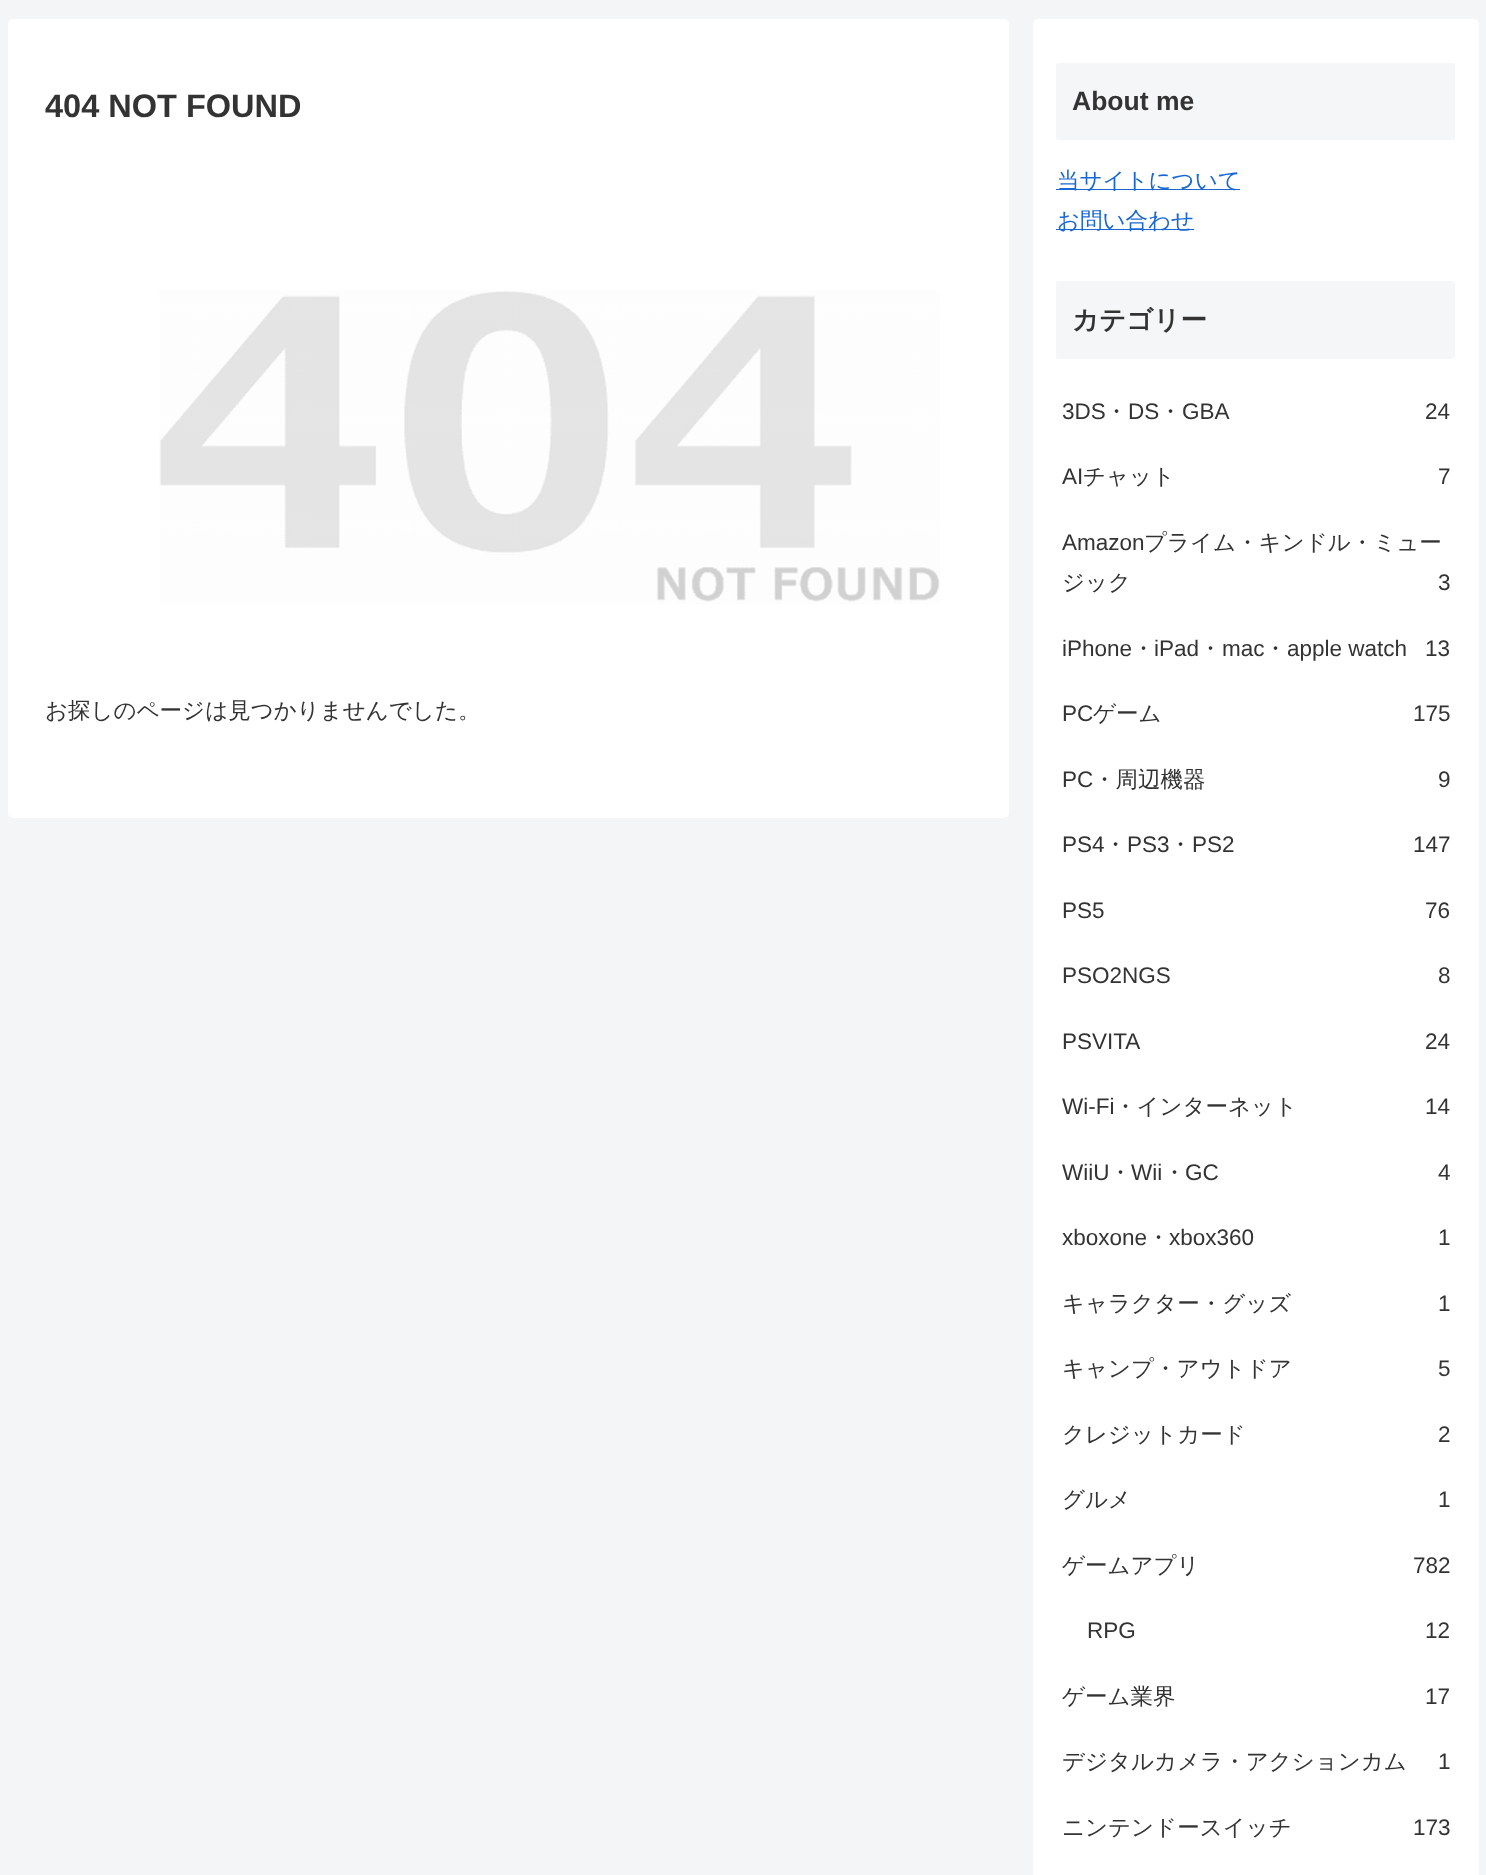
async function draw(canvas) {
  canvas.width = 1486
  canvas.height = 1875
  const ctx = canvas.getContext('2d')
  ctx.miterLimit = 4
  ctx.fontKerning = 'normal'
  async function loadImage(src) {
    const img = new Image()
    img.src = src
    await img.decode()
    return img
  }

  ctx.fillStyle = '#f4f5f7'
  ctx.fillRect(0, 0, 1486, 1875)
  ctx.fillStyle = '#fff'
  ctx.beginPath()
  ctx.roundRect(8, 19, 1001, 799, 5)
  ctx.fill()
  ctx.font = 'bold 32.5px Liberation Sans'
  ctx.fillStyle = '#333'
  ctx.fillText('404 NOT FOUND', 45, 117)
  ctx.drawImage(await loadImage('image0.png'), 159, 290, 781, 314)
  ctx.font = '500 22.5px WenQuanYi Zen Hei'
  ctx.fillText('お探しのページは見つかりませんでした。', 45, 718)
  ctx.fillStyle = '#fff'
  ctx.beginPath()
  ctx.roundRect(1033, 19, 446, 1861, 5)
  ctx.fill()
  ctx.fillStyle = '#f5f6f7'
  ctx.beginPath()
  ctx.roundRect(1056, 63, 399, 77, 2.5)
  ctx.fill()
  ctx.font = 'bold 26.5px Liberation Sans'
  ctx.fillStyle = '#333'
  ctx.fillText('About me', 1072, 110)
  ctx.fillStyle = '#1967d2'
  ctx.fillRect(1056, 189, 184, 1)
  ctx.font = '500 22.5px WenQuanYi Zen Hei'
  ctx.fillText('当サイトについて', 1057, 188)
  ctx.fillRect(1056, 229, 138, 1)
  ctx.fillText('お問い合わせ', 1057, 228)
  ctx.fillStyle = '#f5f6f7'
  ctx.beginPath()
  ctx.roundRect(1056, 281, 399, 78, 2.5)
  ctx.fill()
  ctx.font = 'bold 26.5px WenQuanYi Zen Hei'
  ctx.fillStyle = '#333'
  ctx.fillText('カテゴリー', 1072, 329)
  ctx.font = '22.5px Liberation Sans'
  ctx.fillText('3DS', 1062, 419)
  ctx.font = '500 22.5px WenQuanYi Zen Hei'
  ctx.fillText('・', 1105, 419)
  ctx.font = '22.5px Liberation Sans'
  ctx.fillText('DS', 1128, 419)
  ctx.font = '500 22.5px WenQuanYi Zen Hei'
  ctx.fillText('・', 1159, 419)
  ctx.font = '22.5px Liberation Sans'
  ctx.fillText('GBA', 1182, 419)
  ctx.fillText('24', 1425, 419)
  ctx.fillText('AI', 1062, 484)
  ctx.font = '500 22.5px WenQuanYi Zen Hei'
  ctx.fillText('チャット', 1083, 484)
  ctx.font = '22.5px Liberation Sans'
  ctx.fillText('7', 1438, 484)
  ctx.fillText('Amazon', 1062, 550)
  ctx.font = '500 22.5px WenQuanYi Zen Hei'
  ctx.fillText('プライム・キンドル・ミュー', 1144, 550)
  ctx.fillText('ジック', 1062, 590)
  ctx.font = '22.5px Liberation Sans'
  ctx.fillText('3', 1438, 590)
  ctx.fillText('iPhone', 1062, 656)
  ctx.font = '500 22.5px WenQuanYi Zen Hei'
  ctx.fillText('・', 1132, 656)
  ctx.font = '22.5px Liberation Sans'
  ctx.fillText('iPad', 1154, 656)
  ctx.font = '500 22.5px WenQuanYi Zen Hei'
  ctx.fillText('・', 1199, 656)
  ctx.font = '22.5px Liberation Sans'
  ctx.fillText('mac', 1222, 656)
  ctx.font = '500 22.5px WenQuanYi Zen Hei'
  ctx.fillText('・', 1264, 656)
  ctx.font = '22.5px Liberation Sans'
  ctx.fillText('apple watch', 1287, 656)
  ctx.fillText('13', 1425, 656)
  ctx.fillText('PC', 1062, 721)
  ctx.font = '500 22.5px WenQuanYi Zen Hei'
  ctx.fillText('ゲーム', 1093, 721)
  ctx.font = '22.5px Liberation Sans'
  ctx.fillText('175', 1413, 721)
  ctx.fillText('PC', 1062, 787)
  ctx.font = '500 22.5px WenQuanYi Zen Hei'
  ctx.fillText('・周辺機器', 1093, 787)
  ctx.font = '22.5px Liberation Sans'
  ctx.fillText('9', 1438, 787)
  ctx.fillText('PS4', 1062, 852)
  ctx.font = '500 22.5px WenQuanYi Zen Hei'
  ctx.fillText('・', 1104, 852)
  ctx.font = '22.5px Liberation Sans'
  ctx.fillText('PS3', 1127, 852)
  ctx.font = '500 22.5px WenQuanYi Zen Hei'
  ctx.fillText('・', 1169, 852)
  ctx.font = '22.5px Liberation Sans'
  ctx.fillText('PS2', 1192, 852)
  ctx.fillText('147', 1413, 852)
  ctx.fillText('PS5', 1062, 918)
  ctx.fillText('76', 1425, 918)
  ctx.fillText('PSO2NGS', 1062, 983)
  ctx.fillText('8', 1438, 983)
  ctx.fillText('PSVITA', 1062, 1049)
  ctx.fillText('24', 1425, 1049)
  ctx.fillText('Wi-Fi', 1062, 1114)
  ctx.font = '500 22.5px WenQuanYi Zen Hei'
  ctx.fillText('・インターネット', 1114, 1114)
  ctx.font = '22.5px Liberation Sans'
  ctx.fillText('14', 1425, 1114)
  ctx.fillText('WiiU', 1062, 1180)
  ctx.font = '500 22.5px WenQuanYi Zen Hei'
  ctx.fillText('・', 1109, 1180)
  ctx.font = '22.5px Liberation Sans'
  ctx.fillText('Wii', 1131, 1180)
  ctx.font = '500 22.5px WenQuanYi Zen Hei'
  ctx.fillText('・', 1163, 1180)
  ctx.font = '22.5px Liberation Sans'
  ctx.fillText('GC', 1185, 1180)
  ctx.fillText('4', 1438, 1180)
  ctx.fillText('xboxone', 1062, 1245)
  ctx.font = '500 22.5px WenQuanYi Zen Hei'
  ctx.fillText('・', 1147, 1245)
  ctx.font = '22.5px Liberation Sans'
  ctx.fillText('xbox360', 1169, 1245)
  ctx.fillText('1', 1438, 1245)
  ctx.font = '500 22.5px WenQuanYi Zen Hei'
  ctx.fillText('キャラクター・グッズ', 1062, 1311)
  ctx.font = '22.5px Liberation Sans'
  ctx.fillText('1', 1438, 1311)
  ctx.font = '500 22.5px WenQuanYi Zen Hei'
  ctx.fillText('キャンプ・アウトドア', 1062, 1376)
  ctx.font = '22.5px Liberation Sans'
  ctx.fillText('5', 1438, 1376)
  ctx.font = '500 22.5px WenQuanYi Zen Hei'
  ctx.fillText('クレジットカード', 1062, 1442)
  ctx.font = '22.5px Liberation Sans'
  ctx.fillText('2', 1438, 1442)
  ctx.font = '500 22.5px WenQuanYi Zen Hei'
  ctx.fillText('グルメ', 1062, 1507)
  ctx.font = '22.5px Liberation Sans'
  ctx.fillText('1', 1438, 1507)
  ctx.font = '500 22.5px WenQuanYi Zen Hei'
  ctx.fillText('ゲームアプリ', 1062, 1573)
  ctx.font = '22.5px Liberation Sans'
  ctx.fillText('782', 1413, 1573)
  ctx.fillText('RPG', 1087, 1638)
  ctx.fillText('12', 1425, 1638)
  ctx.font = '500 22.5px WenQuanYi Zen Hei'
  ctx.fillText('ゲーム業界', 1062, 1704)
  ctx.font = '22.5px Liberation Sans'
  ctx.fillText('17', 1425, 1704)
  ctx.font = '500 22.5px WenQuanYi Zen Hei'
  ctx.fillText('デジタルカメラ・アクションカム', 1062, 1769)
  ctx.font = '22.5px Liberation Sans'
  ctx.fillText('1', 1438, 1769)
  ctx.font = '500 22.5px WenQuanYi Zen Hei'
  ctx.fillText('ニンテンドースイッチ', 1062, 1835)
  ctx.font = '22.5px Liberation Sans'
  ctx.fillText('173', 1413, 1835)
}

draw(document.querySelector('canvas'))
